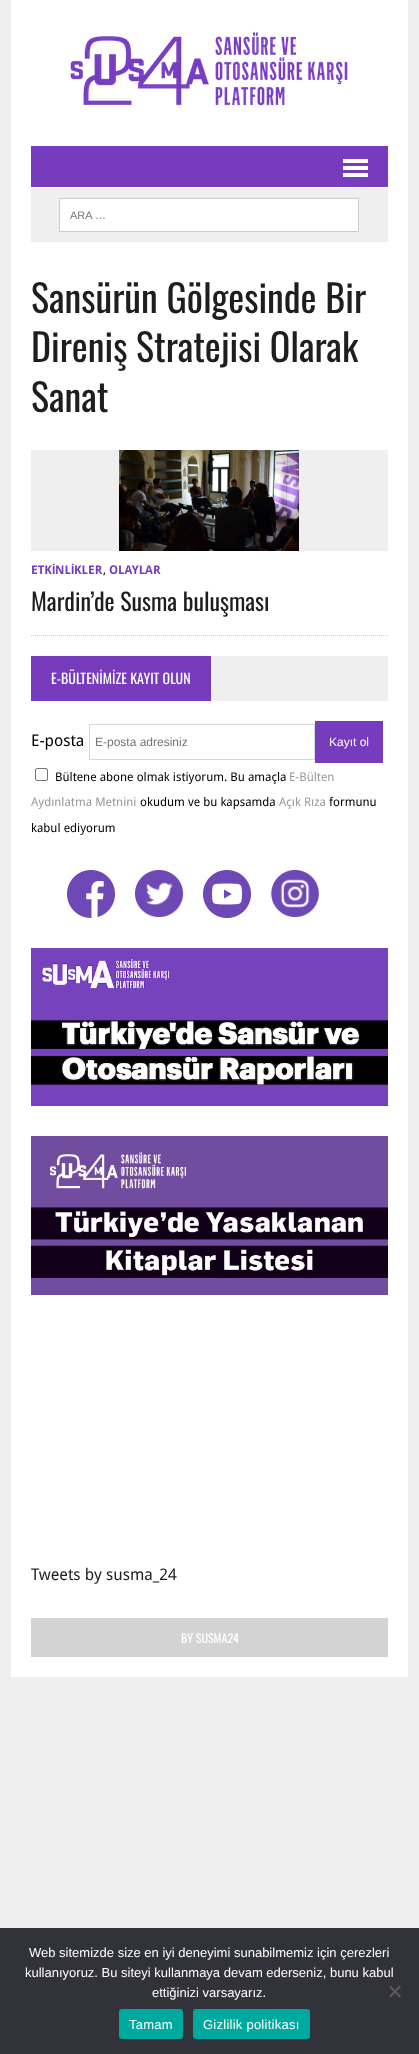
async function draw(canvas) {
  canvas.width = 419
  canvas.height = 2054
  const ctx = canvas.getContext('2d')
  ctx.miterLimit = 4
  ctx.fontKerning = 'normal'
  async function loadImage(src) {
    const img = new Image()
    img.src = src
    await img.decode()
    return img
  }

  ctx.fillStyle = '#efefef'
  ctx.fillRect(0, 0, 419, 2054)
  ctx.fillStyle = '#fff'
  ctx.fillRect(11, 0, 397, 1677)
  ctx.drawImage(await loadImage('image0.png'), 68, 30, 280, 76)
  ctx.fillStyle = '#773cbe'
  ctx.fillRect(31, 146, 357, 41)
  ctx.fillStyle = '#fff'
  ctx.fillRect(343, 159, 25, 4)
  ctx.fillRect(343, 166, 25, 4)
  ctx.fillRect(343, 173, 25, 4)
  ctx.fillStyle = '#efefef'
  ctx.fillRect(31, 188, 357, 54)
  ctx.fillStyle = '#fff'
  ctx.beginPath()
  ctx.rect(59.5, 198.5, 299, 33)
  ctx.fill()
  ctx.strokeStyle = '#cdcdcd'
  ctx.stroke()
  ctx.font = '11px Liberation Sans'
  ctx.fillStyle = '#757575'
  ctx.fillText('ARA …', 70, 219)
  ctx.font = '38px Oswald'
  ctx.fillStyle = '#1f1e1e'
  ctx.fillText('Sansürün Gölgesinde Bir', 31, 313)
  ctx.fillText('Direniş Stratejisi Olarak', 31, 362)
  ctx.fillText('Sanat', 31, 412)
  ctx.fillStyle = '#efefef'
  ctx.fillRect(31, 450, 357, 101)
  ctx.drawImage(await loadImage('image1.png'), 119, 450, 180, 101)
  ctx.font = 'bold 12px Droid Sans'
  ctx.fillStyle = '#773cbe'
  ctx.fillText('ETK NL KLER', 31, 574)
  ctx.font = 'bold 12px Liberation Sans'
  ctx.fillText('İ', 52, 574)
  ctx.fillText('İ', 71, 574)
  ctx.font = '12px Droid Sans'
  ctx.fillStyle = '#000'
  ctx.fillText(',', 103, 574)
  ctx.font = 'bold 12px Droid Sans'
  ctx.fillStyle = '#773cbe'
  ctx.fillText('OLAYLAR', 109, 574)
  ctx.font = '24px Oswald'
  ctx.fillStyle = '#1f1e1e'
  ctx.fillText('Mardin’de Susma buluşması', 31, 611)
  ctx.beginPath()
  ctx.moveTo(31, 635.5)
  ctx.lineTo(388, 635.5)
  ctx.setLineDash([1, 1])
  ctx.stroke()
  ctx.fillStyle = '#efefef'
  ctx.fillRect(211, 656, 177, 45)
  ctx.fillStyle = '#773cbe'
  ctx.fillRect(31, 656, 180, 45)
  ctx.font = '14px Oswald'
  ctx.fillStyle = '#fff'
  ctx.fillText('E-BÜLTENİMİZE KAYIT OLUN', 51, 684)
  ctx.font = '16px Droid Sans'
  ctx.fillStyle = '#000'
  ctx.fillText('E-posta', 31, 746)
  ctx.strokeStyle = '#d7d8d8'
  ctx.setLineDash([])
  ctx.strokeRect(89.5, 724.5, 225, 35)
  ctx.font = '12px Liberation Sans'
  ctx.fillStyle = '#757575'
  ctx.fillText('E-posta adresiniz', 95, 746)
  ctx.fillStyle = '#773cbe'
  ctx.fillRect(315, 721, 68, 42)
  ctx.fillStyle = '#fff'
  ctx.fillText('Kayıt ol', 329, 746)
  ctx.beginPath()
  ctx.roundRect(35.5, 768.5, 12, 12, 1.5)
  ctx.strokeStyle = '#767676'
  ctx.stroke()
  ctx.font = '12px Droid Sans'
  ctx.fillStyle = '#000'
  ctx.fillText('Bültene abone olmak istiyorum. Bu amaçla', 55, 781)
  ctx.fillStyle = '#999'
  ctx.fillText('E-Bülten', 289, 781)
  ctx.fillText('Aydınlatma Metnini', 31, 806)
  ctx.fillStyle = '#000'
  ctx.fillText('okudum ve bu kapsamda', 140, 806)
  ctx.fillStyle = '#999'
  ctx.fillText('Açık Rıza', 279, 806)
  ctx.fillStyle = '#000'
  ctx.fillText('formunu', 329, 806)
  ctx.fillText('kabul ediyorum', 31, 832)
  ctx.drawImage(await loadImage('image2.png'), 67, 870, 48, 48)
  ctx.drawImage(await loadImage('image3.png'), 135, 870, 48, 47)
  ctx.drawImage(await loadImage('image4.png'), 203, 870, 48, 48)
  ctx.drawImage(await loadImage('image5.png'), 271, 870, 48, 47)
  ctx.drawImage(await loadImage('image6.png'), 31, 948, 357, 158)
  ctx.drawImage(await loadImage('image7.png'), 31, 1136, 357, 159)
  ctx.font = '16px Droid Sans'
  ctx.fillStyle = '#1f1e1e'
  ctx.fillText('Tweets by susma_24', 31, 1580)
  ctx.fillStyle = '#d3d3d3'
  ctx.fillRect(31, 1618, 357, 39)
  ctx.font = '12px Oswald'
  ctx.fillStyle = '#fff'
  ctx.fillText('BY SUSMA24', 181, 1643)
  ctx.fillStyle = '#32323a'
  ctx.fillRect(0, 1928, 419, 126)
  ctx.font = '13px Liberation Sans'
  ctx.fillStyle = '#fff'
  ctx.fillText('Web sitemizde size en iyi deneyimi sunabilmemiz için çerezleri', 29, 1957)
  ctx.fillText('kullanıyoruz. Bu siteyi kullanmaya devam ederseniz, bunu kabul', 25, 1977)
  ctx.fillText('ettiğinizi varsayarız.', 152, 1997)
  ctx.fillStyle = '#59595d'
  ctx.beginPath()
  ctx.moveTo(399.5, 1985.5)
  ctx.lineTo(401, 1987)
  ctx.lineTo(390.5, 1997.5)
  ctx.lineTo(389, 1996)
  ctx.closePath()
  ctx.fill()
  ctx.beginPath()
  ctx.moveTo(389, 1987)
  ctx.lineTo(390.5, 1985.5)
  ctx.lineTo(401, 1996)
  ctx.lineTo(399.5, 1997.5)
  ctx.closePath()
  ctx.fill()
  ctx.fillStyle = '#00a99d'
  ctx.beginPath()
  ctx.roundRect(119, 2009, 64, 30, 3)
  ctx.fill()
  ctx.letterSpacing = '0.25px'
  ctx.fillStyle = '#fff'
  ctx.fillText('Tamam', 129, 2029)
  ctx.fillStyle = '#00a99d'
  ctx.beginPath()
  ctx.roundRect(193, 2009, 117, 30, 3)
  ctx.fill()
  ctx.fillStyle = '#fff'
  ctx.fillText('Gizlilik politikası', 203, 2029)
}

draw(document.querySelector('canvas'))
